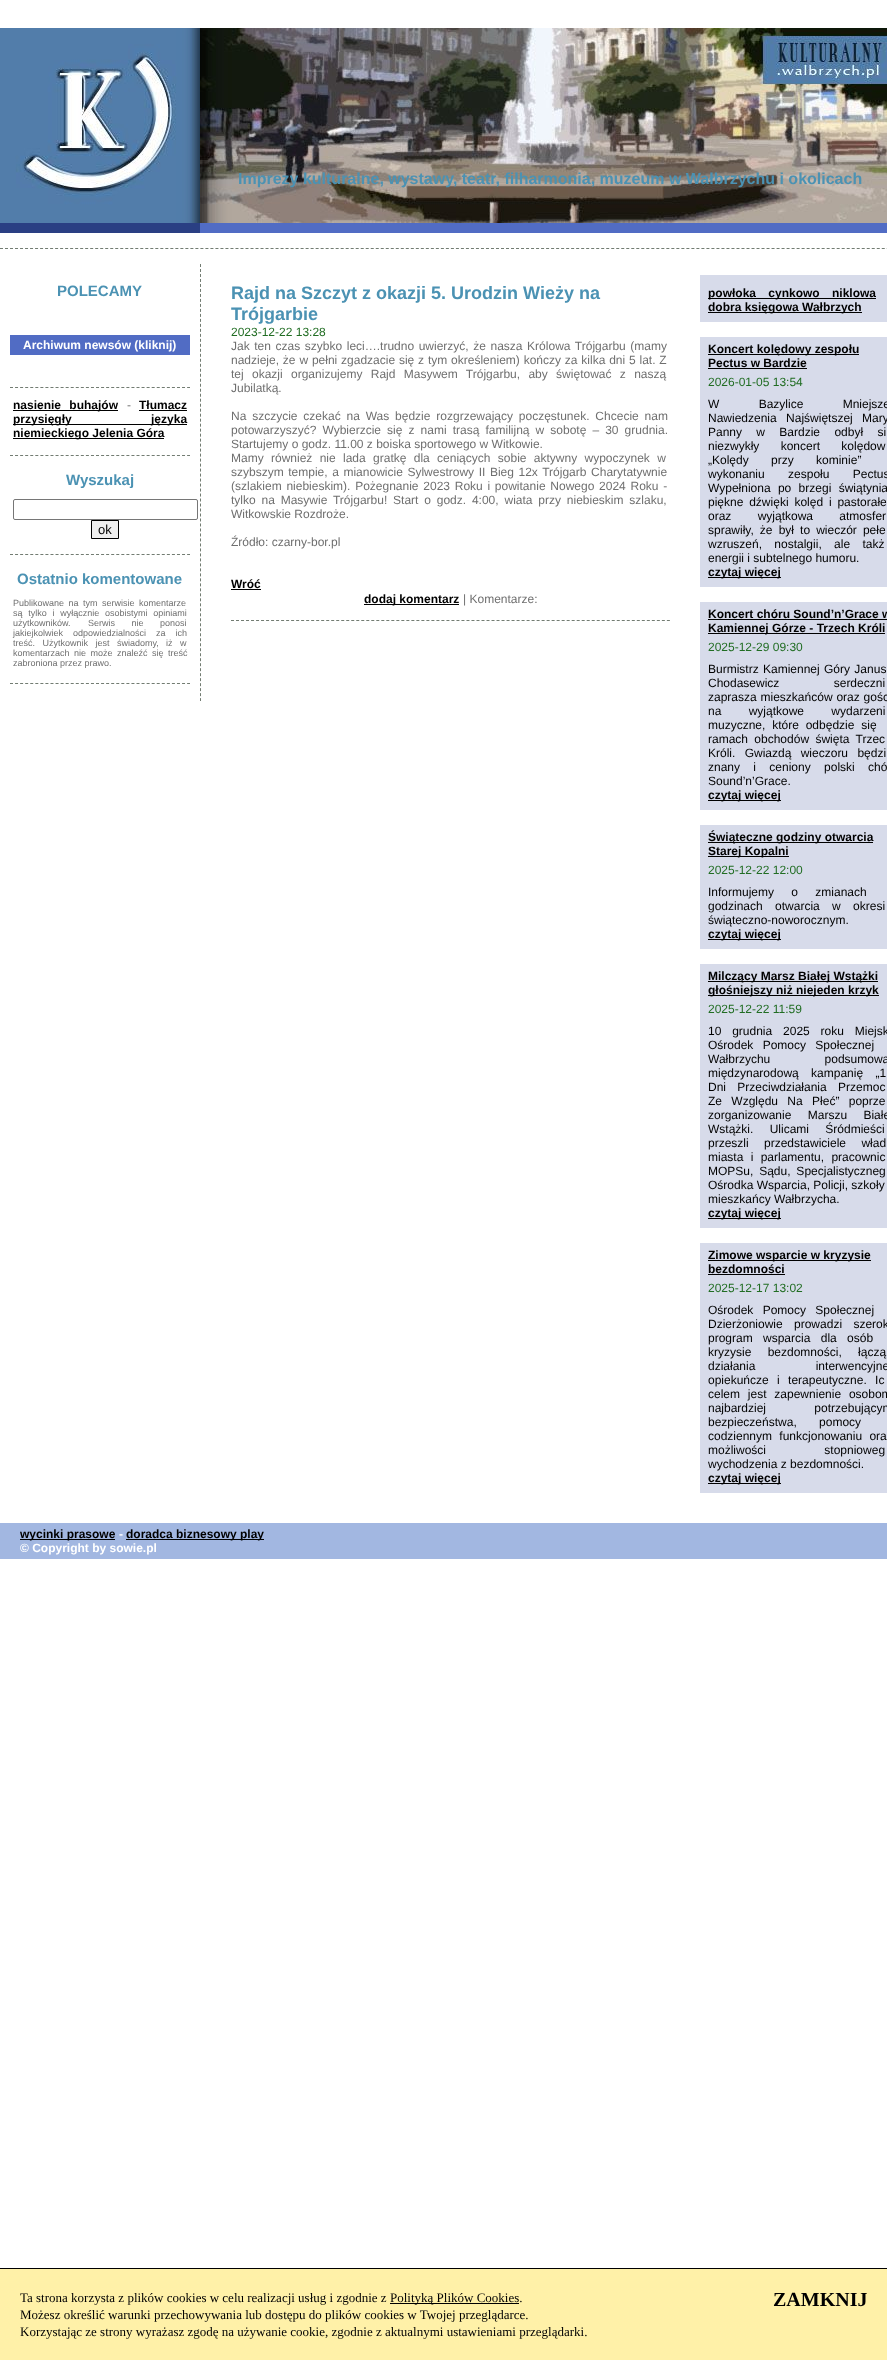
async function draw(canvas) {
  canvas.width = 887
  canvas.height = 2360
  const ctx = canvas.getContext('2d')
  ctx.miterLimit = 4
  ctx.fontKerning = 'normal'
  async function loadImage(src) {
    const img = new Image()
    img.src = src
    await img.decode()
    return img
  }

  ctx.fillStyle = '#fff'
  ctx.fillRect(0, 0, 887, 2360)
  ctx.fillStyle = '#2a3f83'
  ctx.fillRect(0, 223, 200, 10)
  ctx.drawImage(await loadImage('image0.png'), 0, 28, 200, 195)
  ctx.drawImage(await loadImage('image1.png'), 200, 28, 687, 195)
  ctx.fillStyle = '#516cc4'
  ctx.fillRect(200, 223, 687, 10)
  ctx.font = 'bold 16px Liberation Sans'
  ctx.fillStyle = '#4b92b3'
  ctx.fillText('Imprezy kulturalne, wystawy, teatr, filharmonia, muzeum w Wałbrzychu i okolicach', 238, 184)
  ctx.beginPath()
  ctx.moveTo(0, 248.5)
  ctx.lineTo(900, 248.5)
  ctx.strokeStyle = '#727c72'
  ctx.setLineDash([3, 2.01])
  ctx.stroke()
  ctx.beginPath()
  ctx.moveTo(200.5, 264)
  ctx.lineTo(200.5, 701)
  ctx.setLineDash([3, 1.99])
  ctx.stroke()
  ctx.beginPath()
  ctx.moveTo(10, 554.5)
  ctx.lineTo(190, 554.5)
  ctx.setLineDash([3, 2.06])
  ctx.stroke()
  ctx.font = 'bold 15px Liberation Sans'
  ctx.fillText('POLECAMY', 57, 296)
  ctx.fillStyle = '#516cc4'
  ctx.fillRect(10, 335, 180, 20)
  ctx.font = 'bold 12px Liberation Sans'
  ctx.fillStyle = '#fff'
  ctx.fillText('Archiwum newsów (kliknij)', 23, 349)
  ctx.beginPath()
  ctx.moveTo(10, 387.5)
  ctx.lineTo(190, 387.5)
  ctx.stroke()
  ctx.fillStyle = '#000'
  ctx.fillRect(13, 410, 105, 1)
  ctx.wordSpacing = '5px'
  ctx.fillText('nasienie buhajów', 13, 409)
  ctx.wordSpacing = '0px'
  ctx.font = '12px Liberation Sans'
  ctx.fillStyle = '#6f6f6f'
  ctx.fillText('-', 127, 409)
  ctx.font = 'bold 12px Liberation Sans'
  ctx.fillStyle = '#000'
  ctx.fillText('Tłumacz', 139, 409)
  ctx.fillRect(139, 410, 48, 1)
  ctx.fillRect(13, 424, 174, 1)
  ctx.wordSpacing = '76px'
  ctx.fillText('przysięgły języka', 13, 423)
  ctx.fillRect(13, 438, 151, 1)
  ctx.wordSpacing = '0px'
  ctx.fillText('niemieckiego Jelenia Góra', 13, 437)
  ctx.beginPath()
  ctx.moveTo(10, 455.5)
  ctx.lineTo(190, 455.5)
  ctx.stroke()
  ctx.font = 'bold 15px Liberation Sans'
  ctx.fillStyle = '#4b92b3'
  ctx.fillText('Wyszukaj', 66, 485)
  ctx.beginPath()
  ctx.roundRect(13.5, 499.5, 184, 20, 1.5)
  ctx.strokeStyle = '#767676'
  ctx.setLineDash([])
  ctx.stroke()
  ctx.fillStyle = '#efefef'
  ctx.beginPath()
  ctx.rect(91.5, 520.5, 27, 18)
  ctx.fill()
  ctx.strokeStyle = '#000'
  ctx.stroke()
  ctx.font = '13px Liberation Sans'
  ctx.fillStyle = '#000'
  ctx.fillText('ok', 98, 534)
  ctx.beginPath()
  ctx.moveTo(10, 683.5)
  ctx.lineTo(190, 683.5)
  ctx.strokeStyle = '#727c72'
  ctx.setLineDash([3, 2.06])
  ctx.stroke()
  ctx.font = 'bold 15px Liberation Sans'
  ctx.fillStyle = '#4b92b3'
  ctx.fillText('Ostatnio komentowane', 17, 584)
  ctx.wordSpacing = '2px'
  ctx.font = '9px Liberation Sans'
  ctx.fillStyle = '#6f6f6f'
  ctx.fillText('Publikowane na tym serwisie komentarze', 13, 606)
  ctx.wordSpacing = '3.25px'
  ctx.fillText('są tylko i wyłącznie osobistymi opiniami', 13, 616)
  ctx.wordSpacing = '0px'
  ctx.fillText('użytkowników.', 13, 626)
  ctx.wordSpacing = '14px'
  ctx.fillText('Serwis nie ponosi', 88, 626)
  ctx.wordSpacing = '7.5px'
  ctx.fillText('jakiejkolwiek odpowiedzialności za ich', 13, 636)
  ctx.wordSpacing = '5px'
  ctx.fillText('treść. Użytkownik jest świadomy,', 13, 646)
  ctx.fillText('iż w', 166, 646)
  ctx.wordSpacing = '2px'
  ctx.fillText('komentarzach nie może znaleźć się treść', 13, 656)
  ctx.wordSpacing = '0px'
  ctx.fillText('zabroniona przez prawo.', 13, 666)
  ctx.font = 'bold 18px Liberation Sans'
  ctx.fillStyle = '#4b92b3'
  ctx.fillText('Rajd na Szczyt z okazji 5. Urodzin Wieży na', 231, 299)
  ctx.fillText('Trójgarbie', 231, 320)
  ctx.font = '12px Liberation Sans'
  ctx.fillStyle = '#216d23'
  ctx.fillText('2023-12-22 13:28', 231, 336)
  ctx.wordSpacing = '1.25px'
  ctx.fillStyle = '#6f6f6f'
  ctx.fillText('Jak ten czas szybko leci….trudno uwierzyć, że nasza Królowa Trójgarbu (mamy', 231, 350)
  ctx.wordSpacing = '0.5px'
  ctx.fillText('nadzieje, że w pełni zgadzacie się z tym określeniem) kończy za kilka dni 5 lat. Z', 231, 364)
  ctx.wordSpacing = '5px'
  ctx.fillText('tej okazji organizujemy Rajd Masywem Trójgarbu, aby świętować z naszą', 231, 378)
  ctx.wordSpacing = '0px'
  ctx.fillText('Jubilatką.', 231, 392)
  ctx.wordSpacing = '2.5px'
  ctx.fillText('Na szczycie czekać na Was będzie rozgrzewający poczęstunek. Chcecie nam', 231, 420)
  ctx.wordSpacing = '2.75px'
  ctx.fillText('potowarzyszyć? Wybierzcie się z nami trasą familijną w sobotę – 30 grudnia.', 231, 434)
  ctx.wordSpacing = '0px'
  ctx.fillText('Startujemy o godz. 11.00 z boiska sportowego w Witkowie.', 231, 448)
  ctx.wordSpacing = '4px'
  ctx.fillText('Mamy również nie lada gratkę dla ceniących sobie aktywny wypoczynek w', 231, 462)
  ctx.wordSpacing = '1.25px'
  ctx.fillText('szybszym tempie, a mianowicie Sylwestrowy II Bieg 12x Trójgarb Charytatywnie', 231, 476)
  ctx.wordSpacing = '1.4px'
  ctx.fillText('(szlakiem niebieskim). Pożegnanie 2023 Roku i powitanie Nowego 2024 Roku -', 231, 490)
  ctx.wordSpacing = '2.5px'
  ctx.fillText('tylko na Masywie Trójgarbu! Start o godz. 4:00, wiata przy niebieskim szlaku,', 231, 504)
  ctx.wordSpacing = '0px'
  ctx.fillText('Witkowskie Rozdroże.', 231, 518)
  ctx.fillText('Źródło: czarny-bor.pl', 231, 546)
  ctx.font = 'bold 12px Liberation Sans'
  ctx.fillStyle = '#000'
  ctx.fillText('Wróć', 231, 588)
  ctx.fillRect(231, 589, 30, 1)
  ctx.fillRect(364, 604, 95, 1)
  ctx.fillText('dodaj komentarz', 364, 603)
  ctx.font = '12px Liberation Sans'
  ctx.fillStyle = '#6f6f6f'
  ctx.fillText('| Komentarze:', 463, 603)
  ctx.beginPath()
  ctx.moveTo(231, 620.5)
  ctx.lineTo(670, 620.5)
  ctx.setLineDash([3, 2.01])
  ctx.stroke()
  ctx.fillStyle = '#d7dbea'
  ctx.fillRect(700, 275, 187, 1218)
  ctx.fillStyle = '#fff'
  ctx.fillRect(700, 322, 187, 15)
  ctx.fillStyle = '#000'
  ctx.fillRect(708, 298, 168, 1)
  ctx.wordSpacing = '9px'
  ctx.font = 'bold 12px Liberation Sans'
  ctx.fillText('powłoka cynkowo niklowa', 708, 297)
  ctx.fillRect(708, 312, 154, 1)
  ctx.wordSpacing = '0px'
  ctx.fillText('dobra księgowa Wałbrzych', 708, 311)
  ctx.fillRect(708, 354, 151, 1)
  ctx.fillText('Koncert kolędowy zespołu', 708, 353)
  ctx.fillText('Pectus w Bardzie', 708, 367)
  ctx.fillRect(708, 368, 99, 1)
  ctx.font = '12px Liberation Sans'
  ctx.fillStyle = '#216d23'
  ctx.fillText('2026-01-05 13:54', 708, 386)
  ctx.fillStyle = '#fff'
  ctx.fillRect(700, 587, 187, 15)
  ctx.wordSpacing = '36px'
  ctx.fillStyle = '#000'
  ctx.fillText('W Bazylice Mniejsze', 708, 408)
  ctx.wordSpacing = '6px'
  ctx.fillText('Nawiedzenia Najświętszej Mary', 708, 422)
  ctx.wordSpacing = '11px'
  ctx.fillText('Panny w Bardzie odbył si', 708, 436)
  ctx.wordSpacing = '18px'
  ctx.fillText('niezwykły koncert kolędow', 708, 450)
  ctx.wordSpacing = '19px'
  ctx.fillText('„Kolędy przy kominie”', 708, 464)
  ctx.wordSpacing = '20px'
  ctx.fillText('wykonaniu zespołu Pectus', 708, 478)
  ctx.wordSpacing = '4px'
  ctx.fillText('Wypełniona po brzegi świątynia', 708, 492)
  ctx.wordSpacing = '2.5px'
  ctx.fillText('piękne dźwięki kolęd i pastorałe', 708, 506)
  ctx.wordSpacing = '23px'
  ctx.fillText('oraz wyjątkowa atmosfer', 708, 520)
  ctx.wordSpacing = '2.75px'
  ctx.fillText('sprawiły, że był to wieczór pełe', 708, 534)
  ctx.wordSpacing = '9px'
  ctx.fillText('wzruszeń, nostalgii, ale takż', 708, 548)
  ctx.wordSpacing = '0px'
  ctx.fillText('energii i subtelnego humoru.', 708, 562)
  ctx.fillRect(708, 577, 73, 1)
  ctx.font = 'bold 12px Liberation Sans'
  ctx.fillText('czytaj więcej', 708, 576)
  ctx.fillText('Koncert chóru Sound’n’Grace w', 708, 618)
  ctx.fillRect(708, 619, 179, 1)
  ctx.fillRect(708, 633, 177, 1)
  ctx.fillText('Kamiennej Górze - Trzech Króli', 708, 632)
  ctx.font = '12px Liberation Sans'
  ctx.fillStyle = '#216d23'
  ctx.fillText('2025-12-29 09:30', 708, 651)
  ctx.fillStyle = '#fff'
  ctx.fillRect(700, 810, 187, 15)
  ctx.wordSpacing = '1px'
  ctx.fillStyle = '#000'
  ctx.fillText('Burmistrz Kamiennej Góry Janus', 708, 673)
  ctx.wordSpacing = '51px'
  ctx.fillText('Chodasewicz serdeczni', 708, 687)
  ctx.wordSpacing = '0.5px'
  ctx.fillText('zaprasza mieszkańców oraz gośc', 708, 701)
  ctx.wordSpacing = '24px'
  ctx.fillText('na wyjątkowe wydarzeni', 708, 715)
  ctx.wordSpacing = '3.5px'
  ctx.fillText('muzyczne, które odbędzie się', 708, 729)
  ctx.wordSpacing = '3px'
  ctx.fillText('ramach obchodów święta Trzec', 708, 743)
  ctx.wordSpacing = '6px'
  ctx.fillText('Króli. Gwiazdą wieczoru będzi', 708, 757)
  ctx.wordSpacing = '10px'
  ctx.fillText('znany i ceniony polski chó', 708, 771)
  ctx.wordSpacing = '0px'
  ctx.fillText('Sound’n’Grace.', 708, 785)
  ctx.fillRect(708, 800, 73, 1)
  ctx.font = 'bold 12px Liberation Sans'
  ctx.fillText('czytaj więcej', 708, 799)
  ctx.fillRect(708, 842, 165, 1)
  ctx.fillText('Świąteczne godziny otwarcia', 708, 841)
  ctx.fillRect(708, 856, 81, 1)
  ctx.fillText('Starej Kopalni', 708, 855)
  ctx.font = '12px Liberation Sans'
  ctx.fillStyle = '#216d23'
  ctx.fillText('2025-12-22 12:00', 708, 874)
  ctx.fillStyle = '#fff'
  ctx.fillRect(700, 949, 187, 15)
  ctx.wordSpacing = '14px'
  ctx.fillStyle = '#000'
  ctx.fillText('Informujemy o zmianach', 708, 896)
  ctx.wordSpacing = '9px'
  ctx.fillText('godzinach otwarcia w okresi', 708, 910)
  ctx.wordSpacing = '0px'
  ctx.fillText('świąteczno-noworocznym.', 708, 924)
  ctx.fillRect(708, 939, 73, 1)
  ctx.font = 'bold 12px Liberation Sans'
  ctx.fillText('czytaj więcej', 708, 938)
  ctx.fillRect(708, 981, 170, 1)
  ctx.fillText('Milczący Marsz Białej Wstążki', 708, 980)
  ctx.fillRect(708, 995, 171, 1)
  ctx.fillText('głośniejszy niż niejeden krzyk', 708, 994)
  ctx.font = '12px Liberation Sans'
  ctx.fillStyle = '#216d23'
  ctx.fillText('2025-12-22 11:59', 708, 1013)
  ctx.fillStyle = '#fff'
  ctx.fillRect(700, 1228, 187, 15)
  ctx.wordSpacing = '7.5px'
  ctx.fillStyle = '#000'
  ctx.fillText('10 grudnia 2025 roku Miejsk', 708, 1035)
  ctx.wordSpacing = '6px'
  ctx.fillText('Ośrodek Pomocy Społecznej', 708, 1049)
  ctx.wordSpacing = '51px'
  ctx.fillText('Wałbrzychu podsumowa', 708, 1063)
  ctx.wordSpacing = '9px'
  ctx.fillText('międzynarodową kampanię „1', 708, 1077)
  ctx.wordSpacing = '8px'
  ctx.fillText('Dni Przeciwdziałania Przemoc', 708, 1091)
  ctx.wordSpacing = '6px'
  ctx.fillText('Ze Względu Na Płeć” poprze', 708, 1105)
  ctx.wordSpacing = '13px'
  ctx.fillText('zorganizowanie Marszu Białe', 708, 1119)
  ctx.fillText('Wstążki. Ulicami Śródmieści', 708, 1133)
  ctx.wordSpacing = '12px'
  ctx.fillText('przeszli przedstawiciele wład', 708, 1147)
  ctx.wordSpacing = '4px'
  ctx.fillText('miasta i parlamentu, pracownic', 708, 1161)
  ctx.wordSpacing = '2.5px'
  ctx.fillText('MOPSu, Sądu, Specjalistyczneg', 708, 1175)
  ctx.wordSpacing = '0px'
  ctx.fillText('Ośrodka Wsparcia, Policji, szkoły', 708, 1189)
  ctx.fillText('mieszkańcy Wałbrzycha.', 708, 1203)
  ctx.fillRect(708, 1218, 73, 1)
  ctx.font = 'bold 12px Liberation Sans'
  ctx.fillText('czytaj więcej', 708, 1217)
  ctx.fillRect(708, 1260, 163, 1)
  ctx.fillText('Zimowe wsparcie w kryzysie', 708, 1259)
  ctx.fillText('bezdomności', 708, 1273)
  ctx.fillRect(708, 1274, 77, 1)
  ctx.font = '12px Liberation Sans'
  ctx.fillStyle = '#216d23'
  ctx.fillText('2025-12-17 13:02', 708, 1292)
  ctx.wordSpacing = '6px'
  ctx.fillStyle = '#000'
  ctx.fillText('Ośrodek Pomocy Społecznej', 708, 1314)
  ctx.wordSpacing = '8px'
  ctx.fillText('Dzierżoniowie prowadzi szerok', 708, 1328)
  ctx.wordSpacing = '7px'
  ctx.fillText('program wsparcia dla osób', 708, 1342)
  ctx.wordSpacing = '13px'
  ctx.fillText('kryzysie bezdomności, łączą', 708, 1356)
  ctx.wordSpacing = '57px'
  ctx.fillText('działania interwencyjne', 708, 1370)
  ctx.wordSpacing = '5px'
  ctx.fillText('opiekuńcze i terapeutyczne. Ic', 708, 1384)
  ctx.wordSpacing = '4.5px'
  ctx.fillText('celem jest zapewnienie osobom', 708, 1398)
  ctx.wordSpacing = '45px'
  ctx.fillText('najbardziej potrzebującym', 708, 1412)
  ctx.wordSpacing = '19px'
  ctx.fillText('bezpieczeństwa, pomocy', 708, 1426)
  ctx.wordSpacing = '4px'
  ctx.fillText('codziennym funkcjonowaniu ora', 708, 1440)
  ctx.wordSpacing = '55px'
  ctx.fillText('możliwości stopnioweg', 708, 1454)
  ctx.wordSpacing = '0px'
  ctx.fillText('wychodzenia z bezdomności.', 708, 1468)
  ctx.fillRect(708, 1483, 73, 1)
  ctx.font = 'bold 12px Liberation Sans'
  ctx.fillText('czytaj więcej', 708, 1482)
  ctx.fillStyle = '#a2b7e1'
  ctx.fillRect(0, 1523, 887, 36)
  ctx.fillStyle = '#000'
  ctx.fillRect(20, 1539, 95, 1)
  ctx.fillText('wycinki prasowe', 20, 1538)
  ctx.fillStyle = '#fff'
  ctx.fillText('-', 119, 1538)
  ctx.fillStyle = '#000'
  ctx.fillRect(126, 1539, 138, 1)
  ctx.fillText('doradca biznesowy play', 126, 1538)
  ctx.fillStyle = '#fff'
  ctx.fillText('© Copyright by sowie.pl', 20, 1552)
  ctx.fillStyle = '#fff1a8'
  ctx.fillRect(0, 2269, 887, 91)
  ctx.fillStyle = '#000'
  ctx.fillRect(0, 2268, 887, 1)
  ctx.font = '13px Liberation Serif'
  ctx.fillText('Ta strona korzysta z plików cookies w celu realizacji usług i zgodnie z', 20, 2302)
  ctx.fillRect(390, 2303, 129, 1)
  ctx.fillText('Polityką Plików Cookies.', 390, 2302)
  ctx.fillText('Możesz określić warunki przechowywania lub dostępu do plików cookies w Twojej przeglądarce.', 20, 2319)
  ctx.fillText('Korzystając ze strony wyrażasz zgodę na używanie cookie, zgodnie z aktualnymi ustawieniami przeglądarki.', 20, 2336)
  ctx.font = 'bold 20px Liberation Serif'
  ctx.fillText('ZAMKNIJ', 773, 2306)
}

draw(document.querySelector('canvas'))
